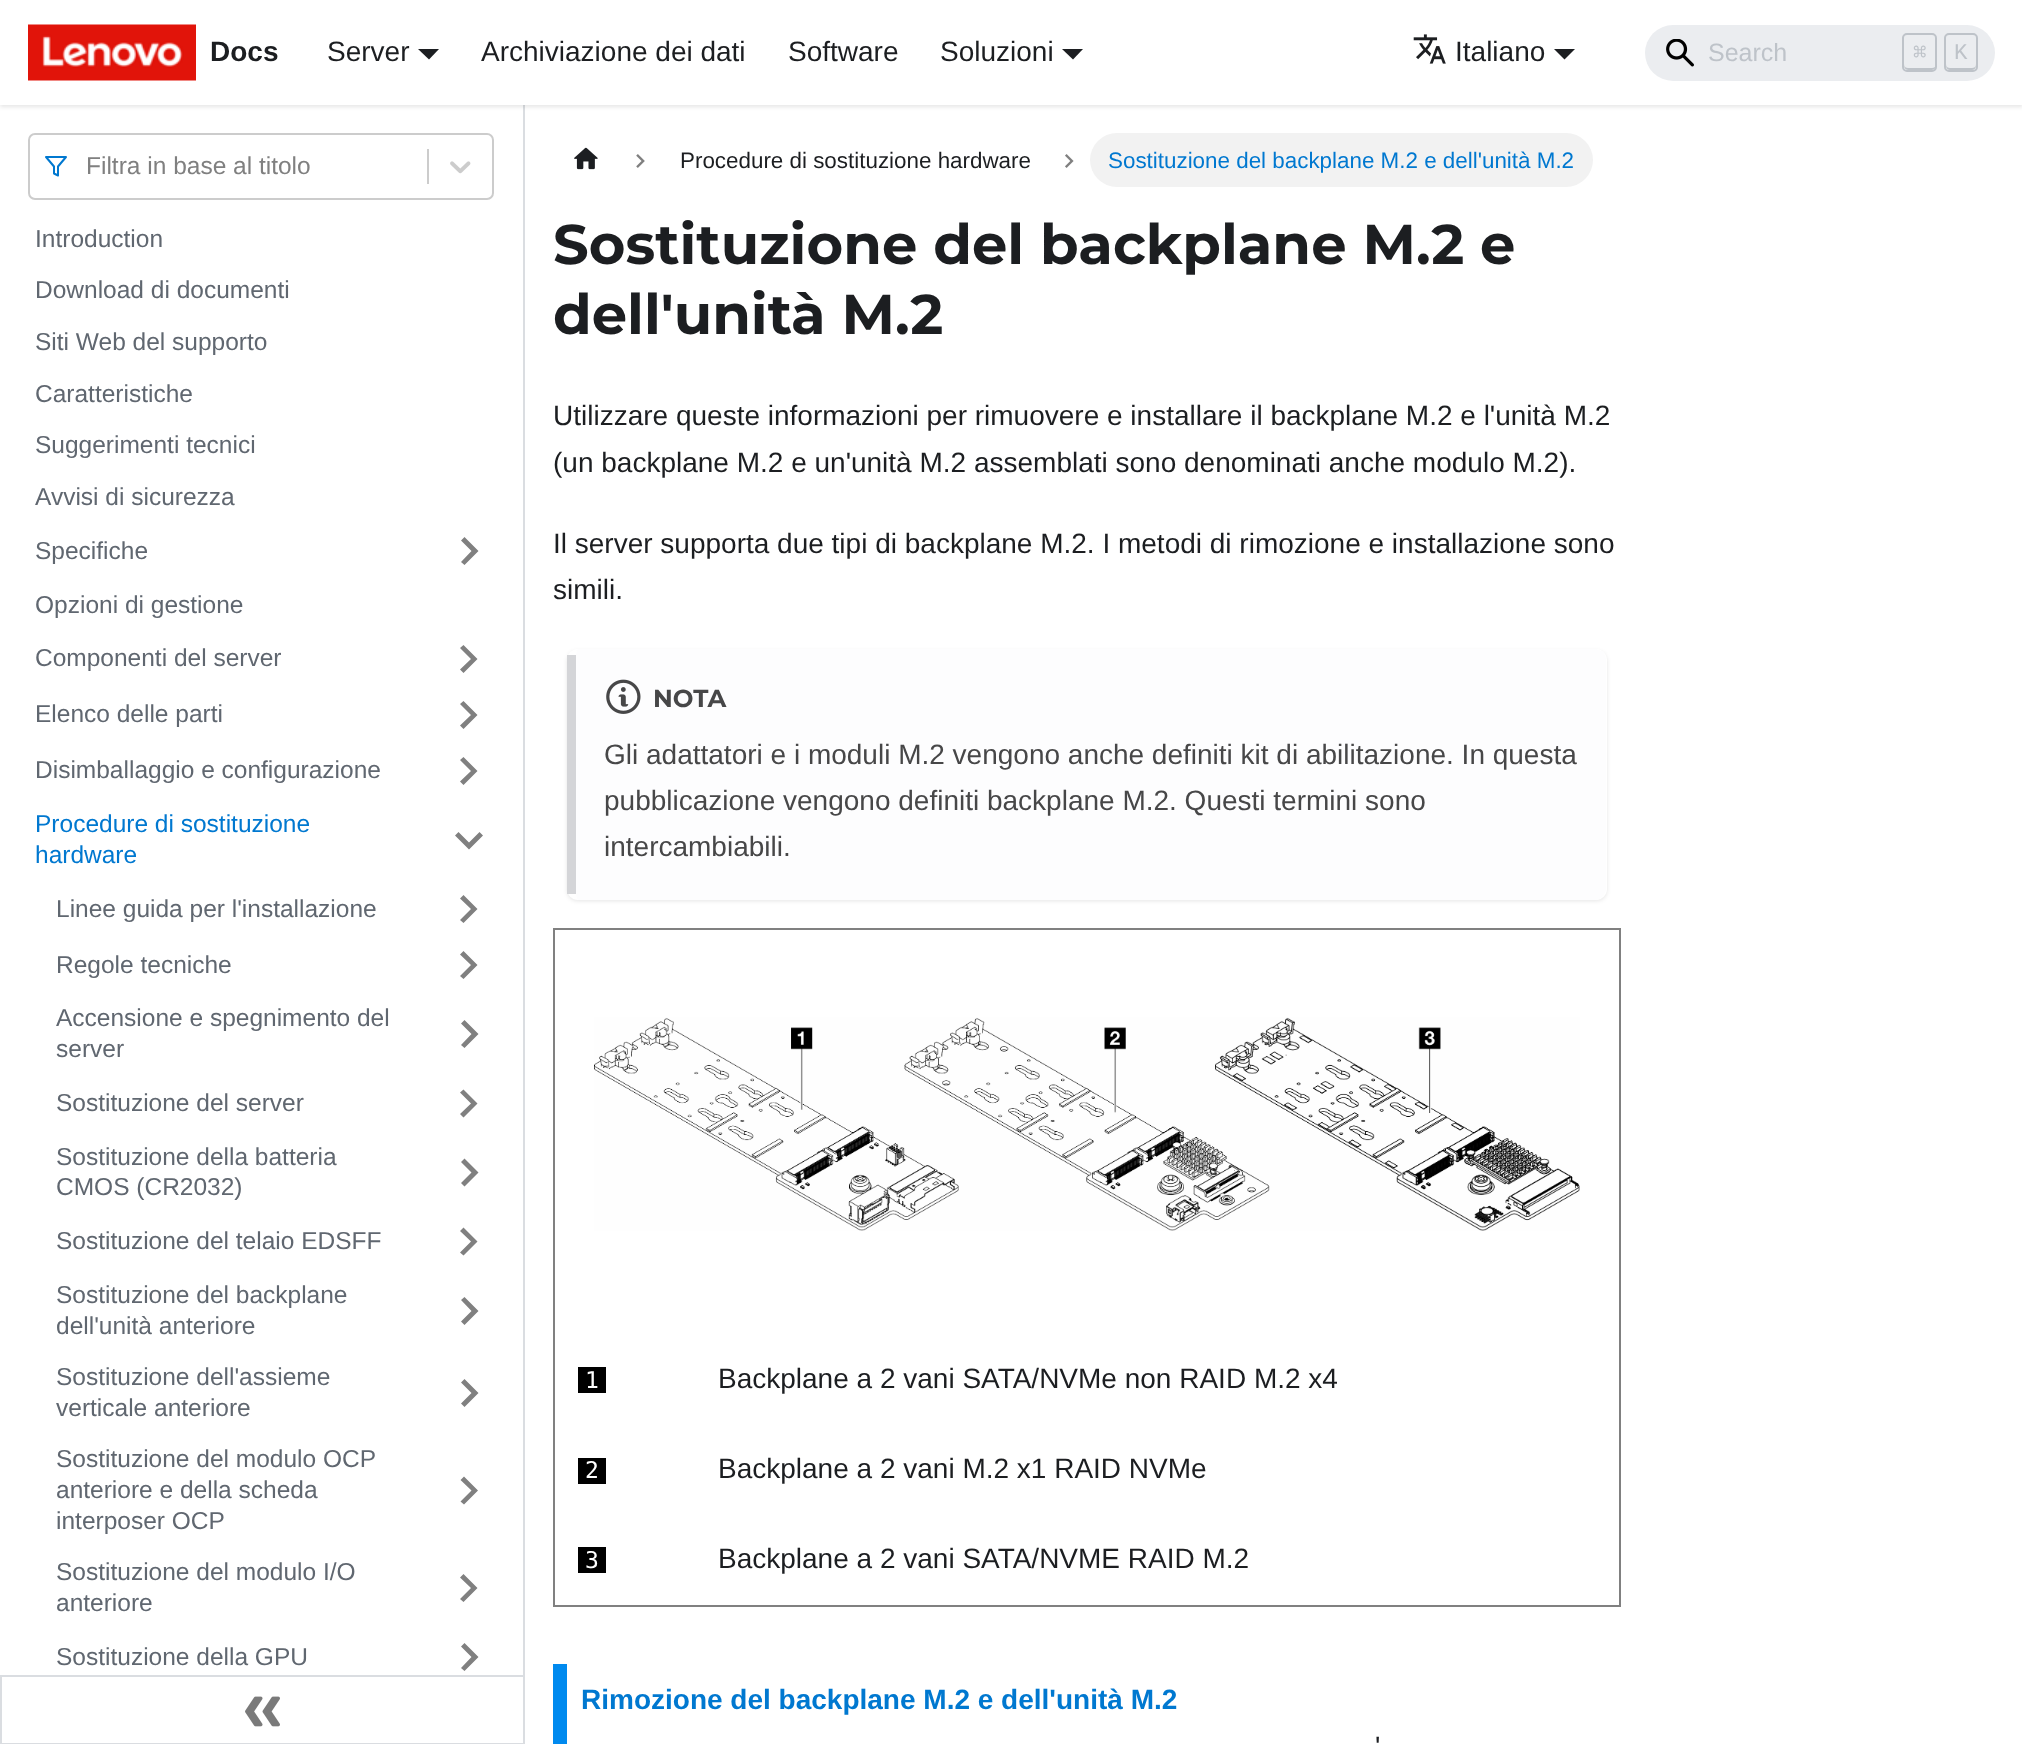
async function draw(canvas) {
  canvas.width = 2022
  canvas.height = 1744
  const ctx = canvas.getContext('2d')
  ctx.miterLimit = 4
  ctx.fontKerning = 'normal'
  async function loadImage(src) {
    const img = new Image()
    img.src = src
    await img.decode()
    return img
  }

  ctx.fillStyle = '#fff'
  ctx.fillRect(0, 0, 2022, 1744)
  ctx.fillStyle = '#dadde1'
  ctx.fillRect(523, 105, 2, 1570)
  ctx.fillStyle = '#0000001a'
  ctx.filter = 'blur(2px)'
  ctx.beginPath()
  ctx.rect(0, 2, 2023, 105)
  ctx.fill()
  ctx.filter = 'none'
  ctx.fillStyle = '#fff'
  ctx.fillRect(0, 0, 2022, 105)
  ctx.drawImage(await loadImage('image0.png'), 28, 24, 168, 57)
  ctx.font = 'bold 28px Liberation Sans'
  ctx.fillStyle = '#1c1e21'
  ctx.fillText('Docs', 210, 61)
  ctx.font = '28px Liberation Sans'
  ctx.fillText('Server', 327, 61)
  ctx.beginPath()
  ctx.moveTo(418, 49)
  ctx.lineTo(439, 49)
  ctx.lineTo(429, 59.5)
  ctx.closePath()
  ctx.fill()
  ctx.fillText('Archiviazione dei dati', 481, 61)
  ctx.fillText('Software', 788, 61)
  ctx.fillText('Soluzioni', 940, 61)
  ctx.beginPath()
  ctx.moveTo(1062, 49)
  ctx.lineTo(1083, 49)
  ctx.lineTo(1073, 59.5)
  ctx.closePath()
  ctx.fill()
  ctx.drawImage(await loadImage('image1.png'), 1413, 34, 33, 30)
  ctx.fillText('Italiano', 1455, 61)
  ctx.beginPath()
  ctx.moveTo(1554, 49)
  ctx.lineTo(1575, 49)
  ctx.lineTo(1564.5, 59.5)
  ctx.closePath()
  ctx.fill()
  ctx.fillStyle = '#ebedf0'
  ctx.beginPath()
  ctx.roundRect(1645, 25, 350, 56, 28)
  ctx.fill()
  ctx.drawImage(await loadImage('image2.png'), 1666, 39, 28, 28)
  ctx.font = '25px Liberation Sans'
  ctx.fillStyle = '#bec3c9'
  ctx.fillText('Search', 1708, 61)
  ctx.beginPath()
  ctx.moveTo(1904, 64)
  ctx.bezierCurveTo(1904, 70, 1906.5, 70, 1912, 70)
  ctx.lineTo(1928, 70)
  ctx.bezierCurveTo(1933.5, 70, 1936, 70, 1936, 64)
  ctx.bezierCurveTo(1936, 67, 1934, 68, 1932, 68)
  ctx.lineTo(1908, 68)
  ctx.bezierCurveTo(1906, 68, 1904, 67, 1904, 64)
  ctx.closePath()
  ctx.fill()
  ctx.beginPath()
  ctx.roundRect(1903, 34, 33, 37, 4)
  ctx.strokeStyle = '#bec3c9'
  ctx.lineWidth = 2
  ctx.stroke()
  ctx.font = '22.4px DejaVu Sans Mono'
  ctx.fillText('⌘', 1913, 60)
  ctx.beginPath()
  ctx.moveTo(1946, 64)
  ctx.bezierCurveTo(1946, 70, 1948, 70, 1953.5, 70)
  ctx.lineTo(1968.5, 70)
  ctx.bezierCurveTo(1974, 70, 1976, 70, 1976, 64)
  ctx.bezierCurveTo(1976, 67, 1974, 68, 1972, 68)
  ctx.lineTo(1950, 68)
  ctx.bezierCurveTo(1948, 68, 1946, 67, 1946, 64)
  ctx.closePath()
  ctx.fill()
  ctx.beginPath()
  ctx.roundRect(1945, 34, 32, 37, 4)
  ctx.stroke()
  ctx.font = '22.4px Liberation Mono'
  ctx.fillText('K', 1954, 59)
  ctx.beginPath()
  ctx.roundRect(29, 134, 464, 65, 6)
  ctx.strokeStyle = '#ccc'
  ctx.stroke()
  ctx.beginPath()
  ctx.moveTo(66, 157)
  ctx.lineTo(46, 157)
  ctx.lineTo(54, 166.5)
  ctx.lineTo(54, 173.5)
  ctx.lineTo(58, 175.5)
  ctx.lineTo(58, 166.5)
  ctx.closePath()
  ctx.strokeStyle = '#0078d0'
  ctx.lineCap = 'round'
  ctx.lineJoin = 'round'
  ctx.stroke()
  ctx.font = '24.5px Liberation Sans'
  ctx.fillStyle = '#808080'
  ctx.fillText('Filtra in base al titolo', 86, 174)
  ctx.fillStyle = '#ccc'
  ctx.fillRect(427, 149, 2, 35)
  ctx.drawImage(await loadImage('image3.png'), 450, 161, 21, 13)
  ctx.fillStyle = '#606770'
  ctx.fillText('Introduction', 35, 247)
  ctx.fillText('Download di documenti', 35, 298)
  ctx.fillText('Siti Web del supporto', 35, 350)
  ctx.fillText('Caratteristiche', 35, 402)
  ctx.fillText('Suggerimenti tecnici', 35, 453)
  ctx.fillText('Avvisi di sicurezza', 35, 505)
  ctx.fillText('Specifiche', 35, 559)
  ctx.fillStyle = '#808080'
  ctx.beginPath()
  ctx.moveTo(461, 540.5)
  ctx.lineTo(471.5, 551)
  ctx.lineTo(461, 562)
  ctx.lineTo(464.5, 565)
  ctx.lineTo(478.5, 551)
  ctx.lineTo(464.5, 537)
  ctx.closePath()
  ctx.fill()
  ctx.fillStyle = '#606770'
  ctx.fillText('Opzioni di gestione', 35, 613)
  ctx.fillText('Componenti del server', 35, 666)
  ctx.fillStyle = '#808080'
  ctx.beginPath()
  ctx.moveTo(460, 648)
  ctx.lineTo(471, 659)
  ctx.lineTo(460, 669.5)
  ctx.lineTo(463.5, 673)
  ctx.lineTo(477.5, 659)
  ctx.lineTo(463.5, 645)
  ctx.closePath()
  ctx.fill()
  ctx.fillStyle = '#606770'
  ctx.fillText('Elenco delle parti', 35, 722)
  ctx.fillStyle = '#808080'
  ctx.beginPath()
  ctx.moveTo(460, 704)
  ctx.lineTo(471, 715)
  ctx.lineTo(460, 725.5)
  ctx.lineTo(463.5, 729)
  ctx.lineTo(477.5, 715)
  ctx.lineTo(463.5, 701)
  ctx.closePath()
  ctx.fill()
  ctx.fillStyle = '#606770'
  ctx.fillText('Disimballaggio e configurazione', 35, 778)
  ctx.fillStyle = '#808080'
  ctx.beginPath()
  ctx.moveTo(460, 760)
  ctx.lineTo(471, 771)
  ctx.lineTo(460, 781.5)
  ctx.lineTo(463.5, 785)
  ctx.lineTo(477.5, 771)
  ctx.lineTo(463.5, 757)
  ctx.closePath()
  ctx.fill()
  ctx.fillStyle = '#0078d0'
  ctx.fillText('Procedure di sostituzione', 35, 832)
  ctx.fillText('hardware', 35, 863)
  ctx.fillStyle = '#808080'
  ctx.beginPath()
  ctx.moveTo(479.5, 832)
  ctx.lineTo(469, 842.5)
  ctx.lineTo(458.5, 832)
  ctx.lineTo(455, 835.5)
  ctx.lineTo(469, 849.5)
  ctx.lineTo(483, 835.5)
  ctx.closePath()
  ctx.fill()
  ctx.fillStyle = '#606770'
  ctx.fillText('Linee guida per l\'installazione', 56, 917)
  ctx.fillStyle = '#808080'
  ctx.beginPath()
  ctx.moveTo(460, 898.5)
  ctx.lineTo(471, 909)
  ctx.lineTo(460, 920)
  ctx.lineTo(463.5, 923)
  ctx.lineTo(477.5, 909)
  ctx.lineTo(463.5, 895)
  ctx.closePath()
  ctx.fill()
  ctx.fillStyle = '#606770'
  ctx.fillText('Regole tecniche', 56, 973)
  ctx.fillStyle = '#808080'
  ctx.beginPath()
  ctx.moveTo(460, 954.5)
  ctx.lineTo(471, 965)
  ctx.lineTo(460, 976)
  ctx.lineTo(463.5, 979)
  ctx.lineTo(477.5, 965)
  ctx.lineTo(463.5, 951)
  ctx.closePath()
  ctx.fill()
  ctx.fillStyle = '#606770'
  ctx.fillText('Accensione e spegnimento del', 56, 1026)
  ctx.fillText('server', 56, 1057)
  ctx.fillStyle = '#808080'
  ctx.beginPath()
  ctx.moveTo(461, 1023.5)
  ctx.lineTo(471.5, 1034)
  ctx.lineTo(461, 1045)
  ctx.lineTo(464.5, 1048)
  ctx.lineTo(478.5, 1034)
  ctx.lineTo(464.5, 1020)
  ctx.closePath()
  ctx.fill()
  ctx.fillStyle = '#606770'
  ctx.fillText('Sostituzione del server', 56, 1111)
  ctx.fillStyle = '#808080'
  ctx.beginPath()
  ctx.moveTo(460, 1092.5)
  ctx.lineTo(471, 1103.5)
  ctx.lineTo(460, 1114)
  ctx.lineTo(463.5, 1117.5)
  ctx.lineTo(477.5, 1103.5)
  ctx.lineTo(463.5, 1089.5)
  ctx.closePath()
  ctx.fill()
  ctx.fillStyle = '#606770'
  ctx.fillText('Sostituzione della batteria', 56, 1165)
  ctx.fillText('CMOS (CR2032)', 56, 1195)
  ctx.fillStyle = '#808080'
  ctx.beginPath()
  ctx.moveTo(461, 1162)
  ctx.lineTo(471.5, 1172.5)
  ctx.lineTo(461, 1183)
  ctx.lineTo(464.5, 1186.5)
  ctx.lineTo(478.5, 1172.5)
  ctx.lineTo(464.5, 1158.5)
  ctx.closePath()
  ctx.fill()
  ctx.fillStyle = '#606770'
  ctx.fillText('Sostituzione del telaio EDSFF', 56, 1249)
  ctx.fillStyle = '#808080'
  ctx.beginPath()
  ctx.moveTo(460, 1231)
  ctx.lineTo(471, 1241.5)
  ctx.lineTo(460, 1252.5)
  ctx.lineTo(463.5, 1255.5)
  ctx.lineTo(477.5, 1241.5)
  ctx.lineTo(463.5, 1227.5)
  ctx.closePath()
  ctx.fill()
  ctx.fillStyle = '#606770'
  ctx.fillText('Sostituzione del backplane', 56, 1303)
  ctx.fillText('dell\'unità anteriore', 56, 1334)
  ctx.fillStyle = '#808080'
  ctx.beginPath()
  ctx.moveTo(461, 1300)
  ctx.lineTo(471.5, 1311)
  ctx.lineTo(461, 1321.5)
  ctx.lineTo(464.5, 1325)
  ctx.lineTo(478.5, 1311)
  ctx.lineTo(464.5, 1297)
  ctx.closePath()
  ctx.fill()
  ctx.fillStyle = '#606770'
  ctx.fillText('Sostituzione dell\'assieme', 56, 1385)
  ctx.fillText('verticale anteriore', 56, 1416)
  ctx.fillStyle = '#808080'
  ctx.beginPath()
  ctx.moveTo(461, 1382.5)
  ctx.lineTo(471.5, 1393)
  ctx.lineTo(461, 1403.5)
  ctx.lineTo(464.5, 1407)
  ctx.lineTo(478.5, 1393)
  ctx.lineTo(464.5, 1379)
  ctx.closePath()
  ctx.fill()
  ctx.fillStyle = '#606770'
  ctx.fillText('Sostituzione del modulo OCP', 56, 1467)
  ctx.fillText('anteriore e della scheda', 56, 1498)
  ctx.fillText('interposer OCP', 56, 1529)
  ctx.fillStyle = '#808080'
  ctx.beginPath()
  ctx.moveTo(460.5, 1480)
  ctx.lineTo(471.5, 1490.5)
  ctx.lineTo(460.5, 1501.5)
  ctx.lineTo(464, 1504.5)
  ctx.lineTo(478, 1490.5)
  ctx.lineTo(464, 1476.5)
  ctx.closePath()
  ctx.fill()
  ctx.fillStyle = '#606770'
  ctx.fillText('Sostituzione del modulo I/O', 56, 1580)
  ctx.fillText('anteriore', 56, 1611)
  ctx.fillStyle = '#808080'
  ctx.beginPath()
  ctx.moveTo(460, 1577.5)
  ctx.lineTo(471, 1588)
  ctx.lineTo(460, 1599)
  ctx.lineTo(463.5, 1602)
  ctx.lineTo(477.5, 1588)
  ctx.lineTo(463.5, 1574)
  ctx.closePath()
  ctx.fill()
  ctx.fillStyle = '#606770'
  ctx.fillText('Sostituzione della GPU', 56, 1665)
  ctx.fillStyle = '#808080'
  ctx.beginPath()
  ctx.moveTo(461, 1646.5)
  ctx.lineTo(471.5, 1657)
  ctx.lineTo(461, 1668)
  ctx.lineTo(464.5, 1671)
  ctx.lineTo(478.5, 1657)
  ctx.lineTo(464.5, 1643)
  ctx.closePath()
  ctx.fill()
  ctx.strokeStyle = '#dadde1'
  ctx.lineJoin = 'miter'
  ctx.strokeRect(1, 1676, 523, 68)
  ctx.drawImage(await loadImage('image4.png'), 245, 1696, 35, 31)
  ctx.drawImage(await loadImage('image5.png'), 574, 147, 24, 23)
  ctx.drawImage(await loadImage('image6.png'), 636, 154, 9, 14)
  ctx.font = '22.4px Liberation Sans'
  ctx.fillStyle = '#1c1e21'
  ctx.fillText('Procedure di sostituzione hardware', 680, 168)
  ctx.drawImage(await loadImage('image7.png'), 1065, 154, 9, 14)
  ctx.fillStyle = '#f2f2f2'
  ctx.beginPath()
  ctx.roundRect(1090, 133, 503, 54, 27)
  ctx.fill()
  ctx.fillStyle = '#0078d0'
  ctx.fillText('Sostituzione del backplane M.2 e dell\'unità M.2', 1108, 168)
  ctx.font = 'bold 56px Montserrat'
  ctx.fillStyle = '#1c1e21'
  ctx.fillText('Sostituzione del backplane M.2 e', 553, 264)
  ctx.fillText('dell\'unità M.2', 553, 334)
  ctx.font = '28px Liberation Sans'
  ctx.fillText('Utilizzare queste informazioni per rimuovere e installare il backplane M.2 e l\'unità M.2', 553, 425)
  ctx.fillText('(un backplane M.2 e un\'unità M.2 assemblati sono denominati anche modulo M.2).', 553, 472)
  ctx.fillText('Il server supporta due tipi di backplane M.2. I metodi di rimozione e installazione sono', 553, 553)
  ctx.fillText('simili.', 553, 599)
  ctx.save()
  ctx.beginPath()
  ctx.moveTo(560, 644)
  ctx.lineTo(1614, 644)
  ctx.lineTo(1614, 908)
  ctx.lineTo(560, 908)
  ctx.closePath()
  ctx.moveTo(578, 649)
  ctx.lineTo(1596, 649)
  ctx.bezierCurveTo(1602, 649, 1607, 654, 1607, 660)
  ctx.lineTo(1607, 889)
  ctx.bezierCurveTo(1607, 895, 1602, 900, 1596, 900)
  ctx.lineTo(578, 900)
  ctx.bezierCurveTo(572, 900, 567, 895, 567, 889)
  ctx.lineTo(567, 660)
  ctx.bezierCurveTo(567, 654, 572, 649, 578, 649)
  ctx.closePath()
  ctx.clip('evenodd')
  ctx.fillStyle = '#0000001a'
  ctx.filter = 'blur(2px)'
  ctx.beginPath()
  ctx.roundRect(567, 651, 1040, 250, 11)
  ctx.fill()
  ctx.filter = 'none'
  ctx.restore()
  ctx.fillStyle = '#fdfdfe'
  ctx.beginPath()
  ctx.moveTo(578, 649)
  ctx.lineTo(1595, 649)
  ctx.bezierCurveTo(1601, 649, 1606, 654, 1606, 660)
  ctx.lineTo(1606, 888)
  ctx.bezierCurveTo(1606, 894, 1601, 900, 1595, 900)
  ctx.lineTo(578, 900)
  ctx.bezierCurveTo(577, 900, 576, 894, 576, 888)
  ctx.lineTo(576, 660)
  ctx.bezierCurveTo(576, 654, 577, 649, 578, 649)
  ctx.closePath()
  ctx.fill()
  ctx.fillStyle = '#d4d5d8'
  ctx.fillRect(567, 655, 9, 239)
  ctx.drawImage(await loadImage('image8.png'), 606, 679, 35, 35)
  ctx.font = 'bold 24.5px Montserrat'
  ctx.fillStyle = '#474748'
  ctx.fillText('NOTA', 653, 707)
  ctx.font = '28px Liberation Sans'
  ctx.fillText('Gli adattatori e i moduli M.2 vengono anche definiti kit di abilitazione. In questa', 604, 764)
  ctx.fillText('pubblicazione vengono definiti backplane M.2. Questi termini sono', 604, 810)
  ctx.fillText('intercambiabili.', 604, 856)
  ctx.strokeStyle = '#808080'
  ctx.strokeRect(554, 929, 1066, 677)
  ctx.drawImage(await loadImage('image9.png'), 594, 1017, 986, 214)
  ctx.fillStyle = '#000'
  ctx.fillRect(578, 1367, 28, 26)
  ctx.font = '23px DejaVu Sans Mono'
  ctx.fillStyle = '#fff'
  ctx.fillText('1', 585, 1388)
  ctx.font = '28px Liberation Sans'
  ctx.fillStyle = '#1c1e21'
  ctx.fillText('Backplane a 2 vani SATA/NVMe non RAID M.2 x4', 718, 1388)
  ctx.fillStyle = '#000'
  ctx.fillRect(578, 1458, 28, 26)
  ctx.font = '23px DejaVu Sans Mono'
  ctx.fillStyle = '#fff'
  ctx.fillText('2', 585, 1478)
  ctx.font = '28px Liberation Sans'
  ctx.fillStyle = '#1c1e21'
  ctx.fillText('Backplane a 2 vani M.2 x1 RAID NVMe', 718, 1478)
  ctx.fillStyle = '#000'
  ctx.fillRect(578, 1547, 28, 26)
  ctx.font = '23px DejaVu Sans Mono'
  ctx.fillStyle = '#fff'
  ctx.fillText('3', 585, 1568)
  ctx.font = '28px Liberation Sans'
  ctx.fillStyle = '#1c1e21'
  ctx.fillText('Backplane a 2 vani SATA/NVME RAID M.2', 718, 1568)
  ctx.fillStyle = '#008aef'
  ctx.fillRect(553, 1664, 14, 80)
  ctx.font = 'bold 28px Liberation Sans'
  ctx.fillStyle = '#0078d0'
  ctx.fillText('Rimozione del backplane M.2 e dell\'unità M.2', 581, 1709)
  ctx.font = '28px Liberation Sans'
  ctx.fillStyle = '#1c1e21'
  ctx.fillText('\'', 1375, 1756)
}

draw(document.querySelector('canvas'))
